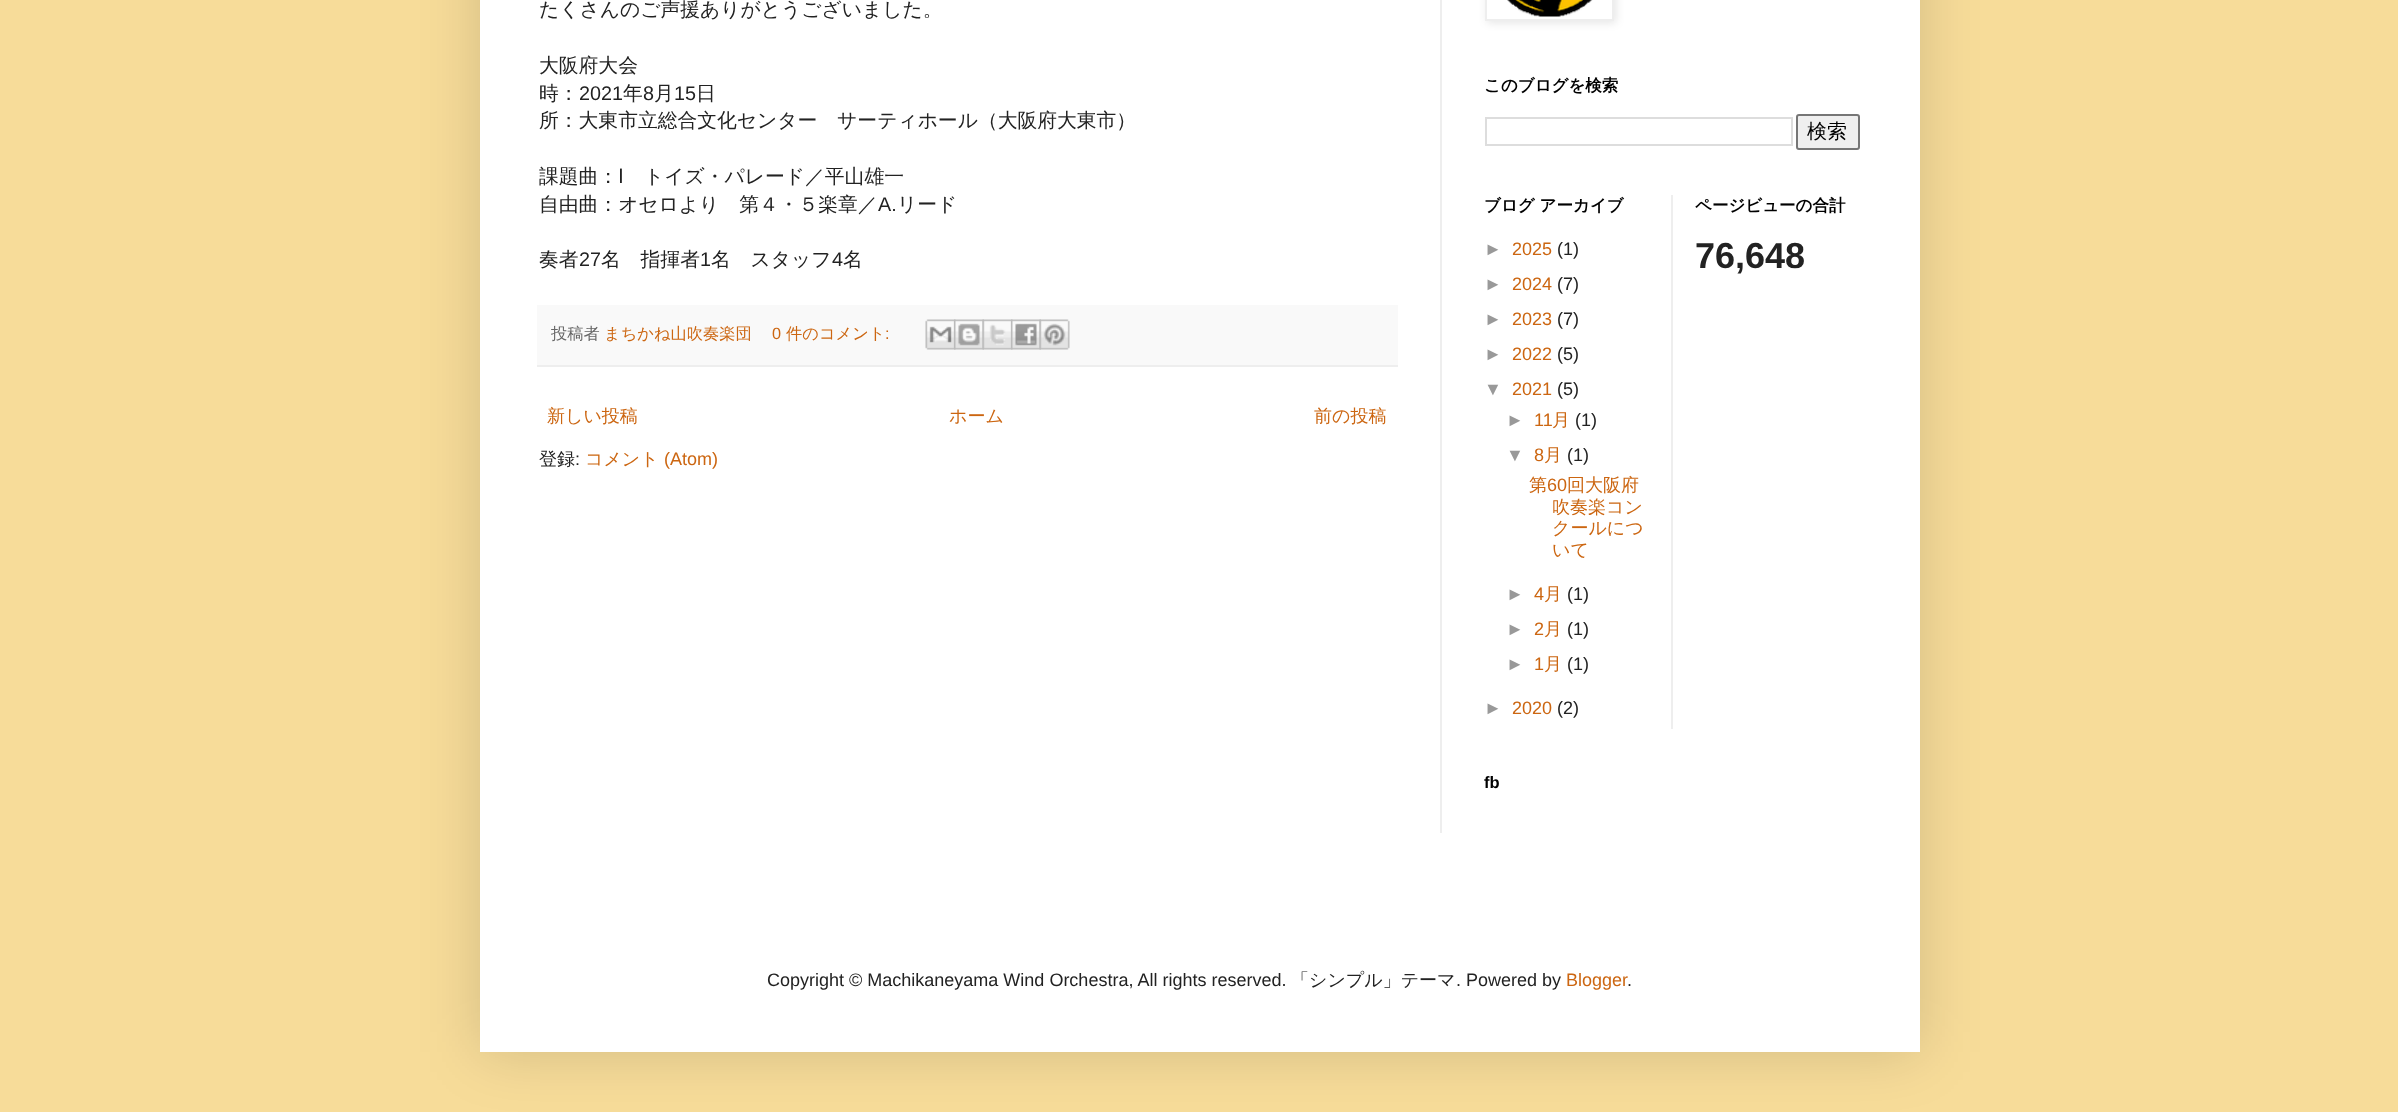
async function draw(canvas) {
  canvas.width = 2398
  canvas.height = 1112
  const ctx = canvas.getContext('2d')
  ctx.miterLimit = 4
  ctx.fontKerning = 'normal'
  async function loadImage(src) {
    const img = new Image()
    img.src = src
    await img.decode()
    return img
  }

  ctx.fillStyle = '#f7dc99'
  ctx.fillRect(0, 0, 2398, 1112)
  ctx.fillStyle = '#00000026'
  ctx.filter = 'blur(30px)'
  ctx.beginPath()
  ctx.rect(480, -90, 1440, 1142)
  ctx.fill()
  ctx.filter = 'none'
  ctx.fillStyle = '#fff'
  ctx.fillRect(480, 0, 1440, 1052)
  ctx.font = '500 19.8px WenQuanYi Zen Hei'
  ctx.fillStyle = '#222'
  ctx.fillText('たくさんのご声援ありがとうございました。', 539, 16)
  ctx.fillText('大阪府大会', 539, 72)
  ctx.fillText('時：', 539, 100)
  ctx.font = '19.8px Liberation Sans'
  ctx.fillText('2021', 579, 100)
  ctx.font = '500 19.8px WenQuanYi Zen Hei'
  ctx.fillText('年', 623, 100)
  ctx.font = '19.8px Liberation Sans'
  ctx.fillText('8', 643, 100)
  ctx.font = '500 19.8px WenQuanYi Zen Hei'
  ctx.fillText('月', 654, 100)
  ctx.font = '19.8px Liberation Sans'
  ctx.fillText('15', 674, 100)
  ctx.font = '500 19.8px WenQuanYi Zen Hei'
  ctx.fillText('日', 696, 100)
  ctx.fillText('所：大東市立総合文化センター　サーティホール（大阪府大東市）', 539, 127)
  ctx.fillText('課題曲：', 539, 183)
  ctx.font = '19.8px FreeSans'
  ctx.fillText('Ⅰ', 618, 183)
  ctx.font = '500 19.8px WenQuanYi Zen Hei'
  ctx.fillText('トイズ・パレード／平山雄一', 644, 183)
  ctx.fillText('自由曲：オセロより　第４・５楽章／', 539, 211)
  ctx.font = '19.8px Liberation Sans'
  ctx.fillText('A.', 878, 211)
  ctx.font = '500 19.8px WenQuanYi Zen Hei'
  ctx.fillText('リード', 897, 211)
  ctx.fillText('奏者', 539, 266)
  ctx.font = '19.8px Liberation Sans'
  ctx.fillText('27', 579, 266)
  ctx.font = '500 19.8px WenQuanYi Zen Hei'
  ctx.fillText('名　指揮者', 601, 266)
  ctx.font = '19.8px Liberation Sans'
  ctx.fillText('1', 700, 266)
  ctx.font = '500 19.8px WenQuanYi Zen Hei'
  ctx.fillText('名　スタッフ', 711, 266)
  ctx.font = '19.8px Liberation Sans'
  ctx.fillText('4', 832, 266)
  ctx.font = '500 19.8px WenQuanYi Zen Hei'
  ctx.fillText('名', 843, 266)
  ctx.fillStyle = '#f9f9f9'
  ctx.fillRect(537, 305, 861, 60)
  ctx.fillStyle = '#eee'
  ctx.fillRect(537, 365, 861, 2)
  ctx.font = '500 16.25px WenQuanYi Zen Hei'
  ctx.fillStyle = '#666'
  ctx.fillText('投稿者', 551, 339)
  ctx.fillStyle = '#c61'
  ctx.fillText('まちかね山吹奏楽団', 604, 339)
  ctx.font = '16.25px Liberation Sans'
  ctx.fillText('0', 772, 339)
  ctx.font = '500 16.25px WenQuanYi Zen Hei'
  ctx.fillText('件のコメント', 786, 339)
  ctx.font = '16.25px Liberation Sans'
  ctx.fillText(':', 885, 339)
  ctx.drawImage(await loadImage('image0.png'), 925, 319, 31, 31)
  ctx.drawImage(await loadImage('image1.png'), 954, 319, 30, 31)
  ctx.drawImage(await loadImage('image2.png'), 982, 319, 31, 31)
  ctx.drawImage(await loadImage('image3.png'), 1011, 319, 30, 31)
  ctx.drawImage(await loadImage('image4.png'), 1039, 319, 31, 31)
  ctx.font = '500 18px WenQuanYi Zen Hei'
  ctx.fillText('新しい投稿', 547, 422)
  ctx.fillText('ホーム', 949, 422)
  ctx.fillText('前の投稿', 1314, 422)
  ctx.fillStyle = '#222'
  ctx.fillText('登録', 539, 465)
  ctx.font = '18px Liberation Sans'
  ctx.fillText(':', 575, 465)
  ctx.font = '500 18px WenQuanYi Zen Hei'
  ctx.fillStyle = '#c61'
  ctx.fillText('コメント', 585, 465)
  ctx.font = '18px Liberation Sans'
  ctx.fillText('(Atom)', 664, 465)
  ctx.save()
  ctx.beginPath()
  ctx.moveTo(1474, 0)
  ctx.lineTo(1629, 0)
  ctx.lineTo(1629, 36)
  ctx.lineTo(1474, 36)
  ctx.closePath()
  ctx.moveTo(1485, -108)
  ctx.lineTo(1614, -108)
  ctx.lineTo(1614, 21)
  ctx.lineTo(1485, 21)
  ctx.closePath()
  ctx.clip('evenodd')
  ctx.fillStyle = '#0000001a'
  ctx.filter = 'blur(4px)'
  ctx.beginPath()
  ctx.rect(1487, -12, 129, 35)
  ctx.fill()
  ctx.filter = 'none'
  ctx.restore()
  ctx.strokeStyle = '#eee'
  ctx.lineWidth = 2
  ctx.strokeRect(1486, -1, 127, 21)
  ctx.drawImage(await loadImage('image5.png'), 1507, 0, 86, 17)
  ctx.font = 'bold 16.5px WenQuanYi Zen Hei'
  ctx.fillStyle = '#000'
  ctx.fillText('このブログを検索', 1484, 91)
  ctx.strokeStyle = '#ddd'
  ctx.strokeRect(1486, 118, 306, 27)
  ctx.fillStyle = '#efefef'
  ctx.beginPath()
  ctx.roundRect(1797, 115, 62, 34, 2)
  ctx.fill()
  ctx.strokeStyle = '#767676'
  ctx.stroke()
  ctx.font = '500 20px WenQuanYi Zen Hei'
  ctx.fillStyle = '#000'
  ctx.fillText('検索', 1807, 138)
  ctx.font = 'bold 16.5px WenQuanYi Zen Hei'
  ctx.fillText('ブログ アーカイブ', 1484, 211)
  ctx.font = '18px Liberation Sans'
  ctx.fillStyle = '#999'
  ctx.fillText('►', 1484, 255)
  ctx.fillStyle = '#c61'
  ctx.fillText('2025', 1512, 255)
  ctx.fillStyle = '#222'
  ctx.fillText('(1)', 1557, 255)
  ctx.fillStyle = '#999'
  ctx.fillText('►', 1484, 290)
  ctx.fillStyle = '#c61'
  ctx.fillText('2024', 1512, 290)
  ctx.fillStyle = '#222'
  ctx.fillText('(7)', 1557, 290)
  ctx.fillStyle = '#999'
  ctx.fillText('►', 1484, 325)
  ctx.fillStyle = '#c61'
  ctx.fillText('2023', 1512, 325)
  ctx.fillStyle = '#222'
  ctx.fillText('(7)', 1557, 325)
  ctx.fillStyle = '#999'
  ctx.fillText('►', 1484, 360)
  ctx.fillStyle = '#c61'
  ctx.fillText('2022', 1512, 360)
  ctx.fillStyle = '#222'
  ctx.fillText('(5)', 1557, 360)
  ctx.fillStyle = '#999'
  ctx.fillText('▼', 1484, 395)
  ctx.fillStyle = '#c61'
  ctx.fillText('2021', 1512, 395)
  ctx.fillStyle = '#222'
  ctx.fillText('(5)', 1557, 395)
  ctx.fillStyle = '#999'
  ctx.fillText('►', 1506, 426)
  ctx.fillStyle = '#c61'
  ctx.fillText('11', 1534, 426)
  ctx.font = '500 18px WenQuanYi Zen Hei'
  ctx.fillText('月', 1552, 426)
  ctx.font = '18px Liberation Sans'
  ctx.fillStyle = '#222'
  ctx.fillText('(1)', 1575, 426)
  ctx.fillStyle = '#999'
  ctx.fillText('▼', 1506, 461)
  ctx.fillStyle = '#c61'
  ctx.fillText('8', 1534, 461)
  ctx.font = '500 18px WenQuanYi Zen Hei'
  ctx.fillText('月', 1544, 461)
  ctx.font = '18px Liberation Sans'
  ctx.fillStyle = '#222'
  ctx.fillText('(1)', 1567, 461)
  ctx.font = '500 18px WenQuanYi Zen Hei'
  ctx.fillStyle = '#c61'
  ctx.fillText('第', 1529, 491)
  ctx.font = '18px Liberation Sans'
  ctx.fillText('60', 1547, 491)
  ctx.font = '500 18px WenQuanYi Zen Hei'
  ctx.fillText('回大阪府', 1567, 491)
  ctx.fillText('吹奏楽コン', 1552, 513)
  ctx.fillText('クールにつ', 1552, 534)
  ctx.fillText('いて', 1552, 556)
  ctx.font = '18px Liberation Sans'
  ctx.fillStyle = '#999'
  ctx.fillText('►', 1506, 600)
  ctx.fillStyle = '#c61'
  ctx.fillText('4', 1534, 600)
  ctx.font = '500 18px WenQuanYi Zen Hei'
  ctx.fillText('月', 1544, 600)
  ctx.font = '18px Liberation Sans'
  ctx.fillStyle = '#222'
  ctx.fillText('(1)', 1567, 600)
  ctx.fillStyle = '#999'
  ctx.fillText('►', 1506, 635)
  ctx.fillStyle = '#c61'
  ctx.fillText('2', 1534, 635)
  ctx.font = '500 18px WenQuanYi Zen Hei'
  ctx.fillText('月', 1544, 635)
  ctx.font = '18px Liberation Sans'
  ctx.fillStyle = '#222'
  ctx.fillText('(1)', 1567, 635)
  ctx.fillStyle = '#999'
  ctx.fillText('►', 1506, 670)
  ctx.fillStyle = '#c61'
  ctx.fillText('1', 1534, 670)
  ctx.font = '500 18px WenQuanYi Zen Hei'
  ctx.fillText('月', 1544, 670)
  ctx.font = '18px Liberation Sans'
  ctx.fillStyle = '#222'
  ctx.fillText('(1)', 1567, 670)
  ctx.fillStyle = '#999'
  ctx.fillText('►', 1484, 714)
  ctx.fillStyle = '#c61'
  ctx.fillText('2020', 1512, 714)
  ctx.fillStyle = '#222'
  ctx.fillText('(2)', 1557, 714)
  ctx.fillStyle = '#eee'
  ctx.fillRect(1671, 195, 2, 534)
  ctx.font = 'bold 16.5px WenQuanYi Zen Hei'
  ctx.fillStyle = '#000'
  ctx.fillText('ページビューの合計', 1695, 211)
  ctx.font = 'bold 36px Liberation Sans'
  ctx.fillStyle = '#222'
  ctx.fillText('76,648', 1695, 268)
  ctx.font = 'bold 16.5px Liberation Sans'
  ctx.fillStyle = '#000'
  ctx.fillText('fb', 1484, 788)
  ctx.fillStyle = '#eee'
  ctx.fillRect(1440, 0, 2, 833)
  ctx.font = '18px Liberation Sans'
  ctx.fillStyle = '#222'
  ctx.fillText('Copyright © Machikaneyama Wind Orchestra, All rights reserved.', 767, 986)
  ctx.font = '500 18px WenQuanYi Zen Hei'
  ctx.fillText('「シンプル」テーマ', 1291, 986)
  ctx.font = '18px Liberation Sans'
  ctx.fillText('. Powered by', 1456, 986)
  ctx.fillStyle = '#c61'
  ctx.fillText('Blogger', 1566, 986)
  ctx.fillStyle = '#222'
  ctx.fillText('.', 1627, 986)
}

draw(document.querySelector('canvas'))
